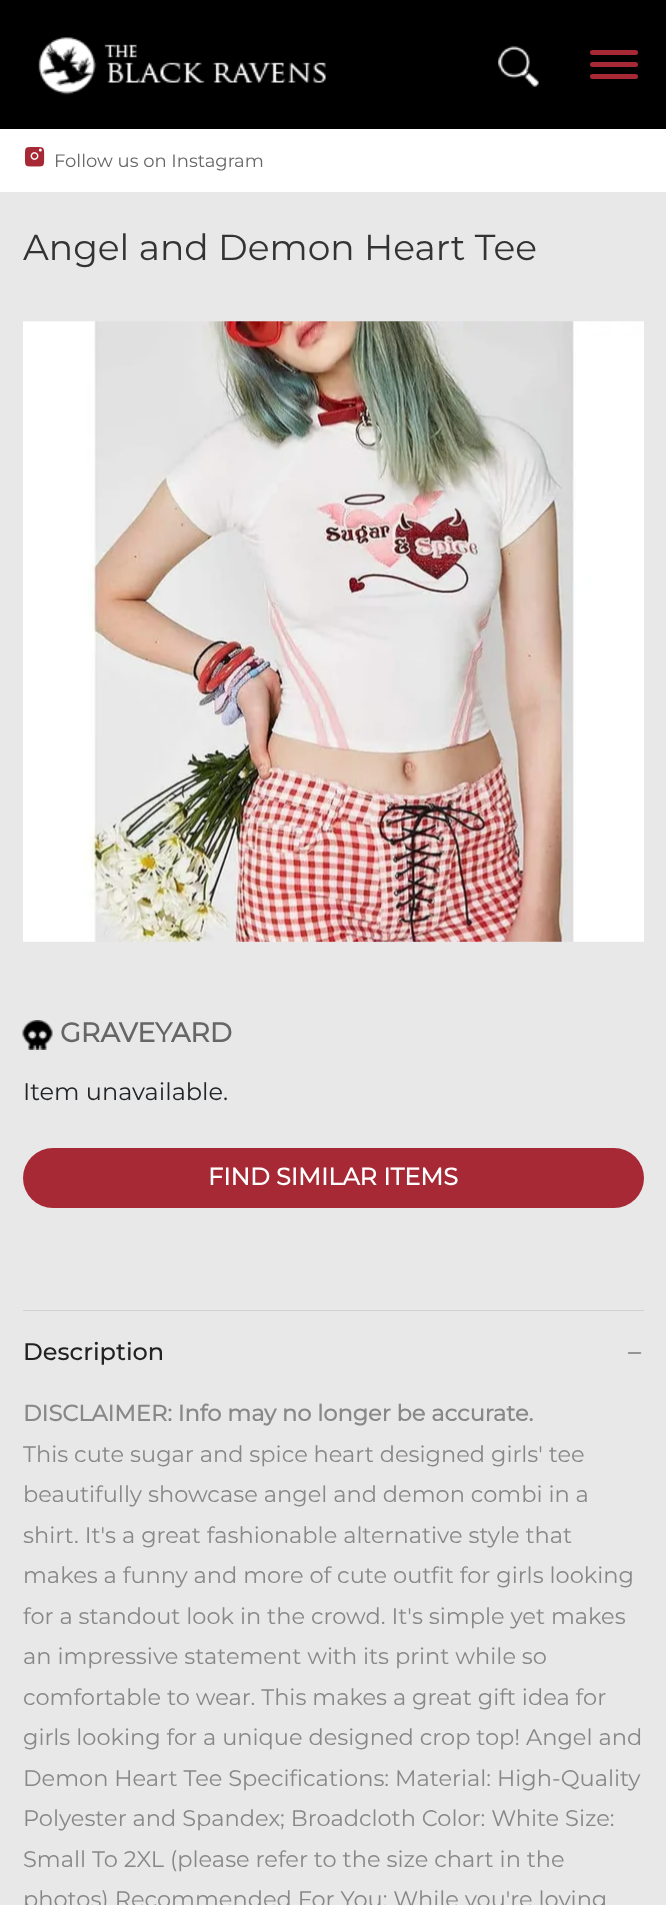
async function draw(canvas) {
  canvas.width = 666
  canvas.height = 1905
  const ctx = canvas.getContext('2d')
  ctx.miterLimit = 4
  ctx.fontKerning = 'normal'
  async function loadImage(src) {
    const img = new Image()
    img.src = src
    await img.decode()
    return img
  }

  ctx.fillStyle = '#e8e8e8'
  ctx.fillRect(0, 0, 666, 1905)
  ctx.fillStyle = '#000'
  ctx.fillRect(0, 0, 666, 129)
  ctx.drawImage(await loadImage('image0.png'), 38, 37, 288, 58)
  ctx.drawImage(await loadImage('image1.png'), 498, 46, 41, 41)
  ctx.fillStyle = '#a62935'
  ctx.beginPath()
  ctx.roundRect(590, 62, 48, 5, 2.5)
  ctx.fill()
  ctx.beginPath()
  ctx.roundRect(590, 50, 48, 5, 2.5)
  ctx.fill()
  ctx.beginPath()
  ctx.roundRect(590, 74, 48, 5, 2.5)
  ctx.fill()
  ctx.fillStyle = '#fff'
  ctx.fillRect(0, 129, 666, 63)
  ctx.drawImage(await loadImage('image2.png'), 24, 147, 21, 20)
  ctx.font = '100 18px Montserrat'
  ctx.fillStyle = '#666'
  ctx.fillText('Follow us on Instagram', 54, 167)
  ctx.font = '100 36px Montserrat'
  ctx.fillStyle = '#333'
  ctx.fillText('Angel and Demon Heart Tee', 23, 260)
  ctx.drawImage(await loadImage('image3.png'), 23, 321, 621, 621)
  ctx.drawImage(await loadImage('image4.png'), 22, 1020, 31, 30)
  ctx.font = 'bold 27px Montserrat'
  ctx.fillStyle = '#666'
  ctx.fillText('GRAVEYARD', 60, 1042)
  ctx.font = '100 24px Montserrat'
  ctx.fillStyle = '#212529'
  ctx.fillText('Item unavailable.', 23, 1100)
  ctx.fillStyle = '#a62935'
  ctx.beginPath()
  ctx.roundRect(23, 1148, 621, 60, 30)
  ctx.fill()
  ctx.font = 'bold 24px Montserrat'
  ctx.fillStyle = '#fff'
  ctx.fillText('FIND SIMILAR ITEMS', 208, 1185)
  ctx.fillStyle = '#d1d1d1'
  ctx.fillRect(23, 1310, 621, 1)
  ctx.font = '100 24px "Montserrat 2"'
  ctx.fillStyle = '#222'
  ctx.fillText('Description', 23, 1360)
  ctx.drawImage(await loadImage('image5.png'), 627, 1352, 15, 2)
  ctx.font = 'bold 22.5px Montserrat'
  ctx.fillStyle = '#888'
  ctx.fillText('DISCLAIMER: Info may no longer be accurate.', 23, 1421)
  ctx.font = '100 22.5px Montserrat'
  ctx.fillText('This cute sugar and spice heart designed girls\' tee', 23, 1462)
  ctx.fillText('beautifully showcase angel and demon combi in a', 23, 1502)
  ctx.fillText('shirt. It\'s a great fashionable alternative style that', 23, 1543)
  ctx.fillText('makes a funny and more of cute outfit for girls looking', 23, 1583)
  ctx.fillText('for a standout look in the crowd. It\'s simple yet makes', 23, 1624)
  ctx.fillText('an impressive statement with its print while so', 23, 1664)
  ctx.fillText('comfortable to wear. This makes a great gift idea for', 23, 1705)
  ctx.fillText('girls looking for a unique designed crop top! Angel and', 23, 1745)
  ctx.fillText('Demon Heart Tee Specifications: Material: High-Quality', 23, 1786)
  ctx.fillText('Polyester and Spandex; Broadcloth Color: White Size:', 23, 1826)
  ctx.fillText('Small To 2XL (please refer to the size chart in the', 23, 1867)
  ctx.fillText('photos) Recommended For You: While you\'re loving', 23, 1907)
}

draw(document.querySelector('canvas'))
